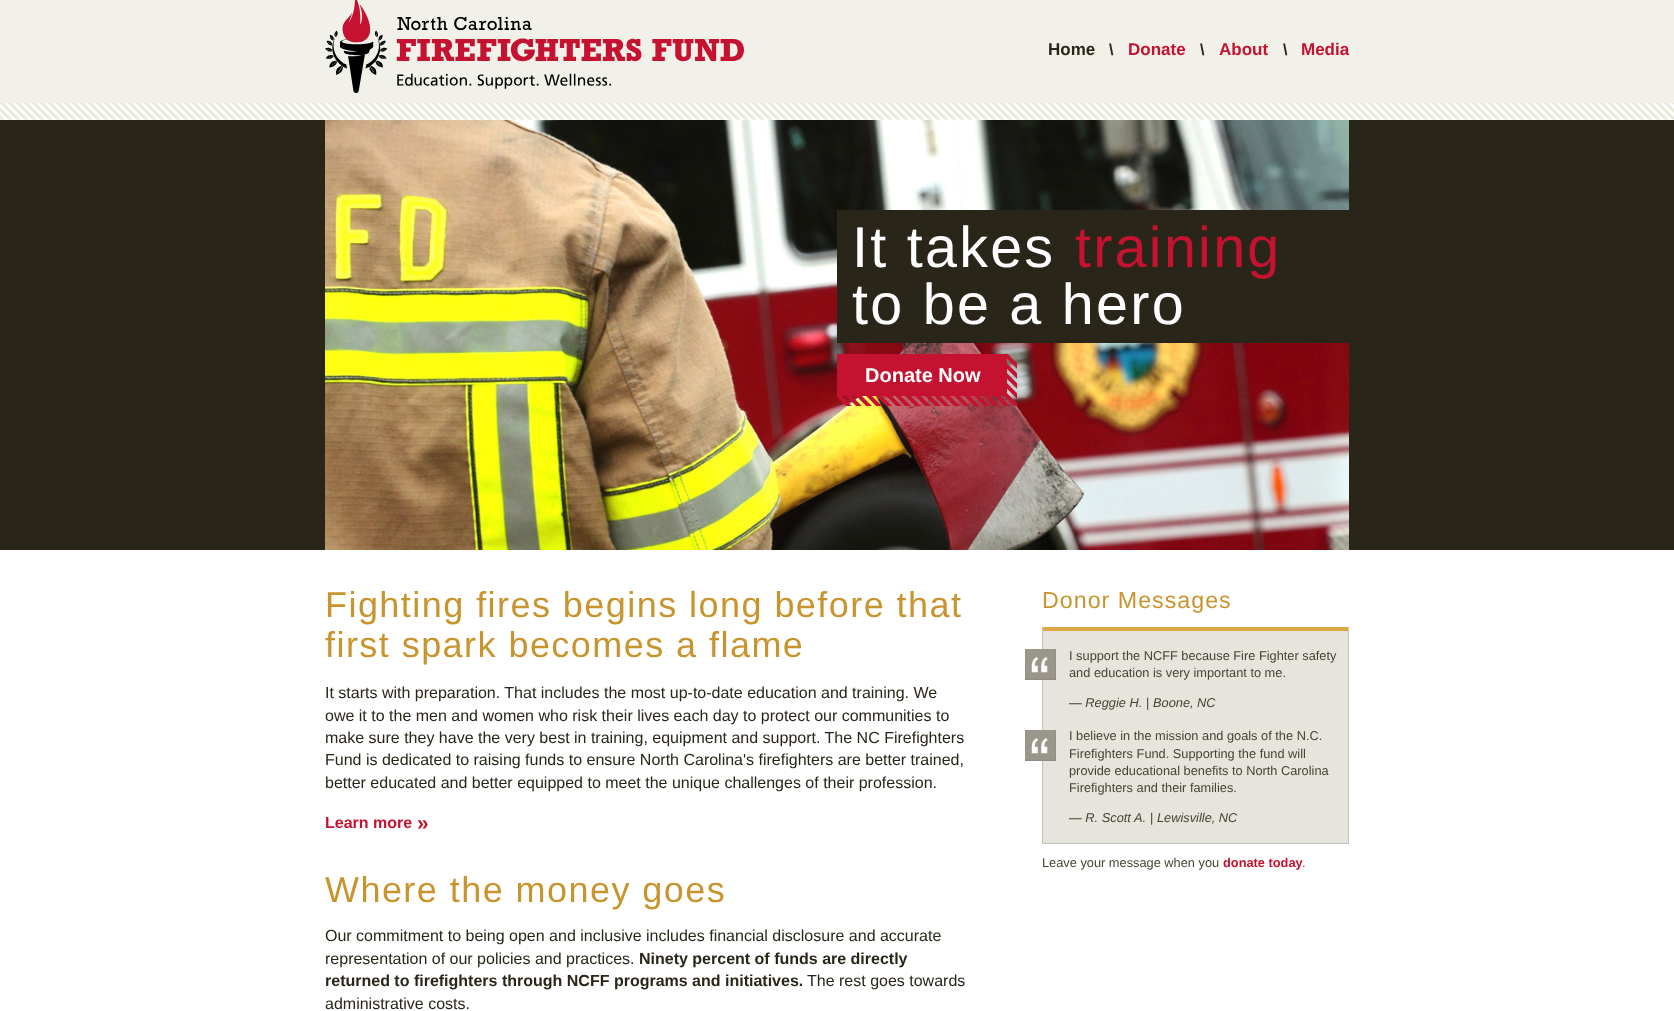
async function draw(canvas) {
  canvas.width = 1674
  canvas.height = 1011
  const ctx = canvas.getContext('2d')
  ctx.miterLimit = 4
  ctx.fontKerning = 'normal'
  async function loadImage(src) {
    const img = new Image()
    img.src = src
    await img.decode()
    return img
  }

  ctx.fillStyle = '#fff'
  ctx.fillRect(0, 0, 1674, 1011)
  ctx.fillStyle = '#f1f1e9'
  ctx.fillRect(0, 0, 1674, 103)
  ctx.drawImage(await loadImage('image0.png'), 0, 103, 1674, 17)
  ctx.drawImage(await loadImage('image1.png'), 325, 0, 419, 93)
  ctx.font = 'bold 17px Liberation Sans'
  ctx.fillStyle = '#292619'
  ctx.fillText('Home', 1048, 55)
  ctx.font = 'bold 16px Liberation Sans'
  ctx.fillText('\\', 1109, 55)
  ctx.font = 'bold 17px Liberation Sans'
  ctx.fillStyle = '#c41230'
  ctx.fillText('Donate', 1128, 55)
  ctx.font = 'bold 16px Liberation Sans'
  ctx.fillStyle = '#292619'
  ctx.fillText('\\', 1200, 55)
  ctx.font = 'bold 17px Liberation Sans'
  ctx.fillStyle = '#c41230'
  ctx.fillText('About', 1219, 55)
  ctx.font = 'bold 16px Liberation Sans'
  ctx.fillStyle = '#292619'
  ctx.fillText('\\', 1283, 55)
  ctx.font = 'bold 17px Liberation Sans'
  ctx.fillStyle = '#c41230'
  ctx.fillText('Media', 1301, 55)
  ctx.fillStyle = '#292619'
  ctx.fillRect(0, 120, 1674, 430)
  ctx.drawImage(await loadImage('image2.png'), 325, 120, 1024, 430)
  ctx.fillRect(837, 210, 512, 133)
  ctx.letterSpacing = '2.25px'
  ctx.font = '57.5px Liberation Sans'
  ctx.fillStyle = '#fff'
  ctx.fillText('It takes', 852, 267)
  ctx.fillStyle = '#c41230'
  ctx.fillText('training', 1075, 267)
  ctx.fillStyle = '#fff'
  ctx.fillText('to be a hero', 852, 324)
  ctx.drawImage(await loadImage('image3.png'), 837, 354, 180, 52)
  ctx.letterSpacing = '0px'
  ctx.font = 'bold 20px Liberation Sans'
  ctx.fillText('Donate Now', 865, 382)
  ctx.letterSpacing = '1.45px'
  ctx.font = '36px Liberation Sans'
  ctx.fillStyle = '#c8942e'
  ctx.fillText('Fighting fires begins long before that', 325, 617)
  ctx.fillText('first spark becomes a flame', 325, 657)
  ctx.letterSpacing = '0px'
  ctx.font = '16px Liberation Sans'
  ctx.fillStyle = '#292619'
  ctx.fillText('It starts with preparation. That includes the most up-to-date education and training. We', 325, 698)
  ctx.fillText('owe it to the men and women who risk their lives each day to protect our communities to', 325, 721)
  ctx.fillText('make sure they have the very best in training, equipment and support. The NC Firefighters', 325, 743)
  ctx.fillText('Fund is dedicated to raising funds to ensure North Carolina\'s firefighters are better trained,', 325, 765)
  ctx.fillText('better educated and better equipped to meet the unique challenges of their profession.', 325, 788)
  ctx.font = 'bold 16px Liberation Sans'
  ctx.fillStyle = '#c41230'
  ctx.fillText('Learn more', 325, 828)
  ctx.font = 'bold 21px Liberation Sans'
  ctx.fillText('»', 417, 830)
  ctx.letterSpacing = '1.45px'
  ctx.font = '36px Liberation Sans'
  ctx.fillStyle = '#c8942e'
  ctx.fillText('Where the money goes', 325, 902)
  ctx.letterSpacing = '0px'
  ctx.font = '16px Liberation Sans'
  ctx.fillStyle = '#292619'
  ctx.fillText('Our commitment to being open and inclusive includes financial disclosure and accurate', 325, 941)
  ctx.fillText('representation of our policies and practices.', 325, 964)
  ctx.font = 'bold 16px Liberation Sans'
  ctx.fillText('Ninety percent of funds are directly', 639, 964)
  ctx.fillText('returned to firefighters through NCFF programs and initiatives.', 325, 986)
  ctx.font = '16px Liberation Sans'
  ctx.fillText('The rest goes towards', 807, 986)
  ctx.fillText('administrative costs.', 325, 1009)
  ctx.letterSpacing = '1px'
  ctx.font = '23.25px Liberation Sans'
  ctx.fillStyle = '#c8942e'
  ctx.fillText('Donor Messages', 1042, 608)
  ctx.fillStyle = '#e6e5dd'
  ctx.fillRect(1043, 631, 305, 212)
  ctx.fillStyle = '#dea944'
  ctx.beginPath()
  ctx.moveTo(1042, 627)
  ctx.lineTo(1349, 627)
  ctx.lineTo(1348, 631)
  ctx.lineTo(1043, 631)
  ctx.closePath()
  ctx.fill()
  ctx.fillStyle = '#c4c2b5'
  ctx.beginPath()
  ctx.moveTo(1349, 627)
  ctx.lineTo(1349, 844)
  ctx.lineTo(1348, 843)
  ctx.lineTo(1348, 631)
  ctx.closePath()
  ctx.fill()
  ctx.fillRect(1042, 843, 307, 1)
  ctx.beginPath()
  ctx.moveTo(1042, 844)
  ctx.lineTo(1042, 627)
  ctx.lineTo(1043, 631)
  ctx.lineTo(1043, 843)
  ctx.closePath()
  ctx.fill()
  ctx.drawImage(await loadImage('image4.png'), 1025, 649, 31, 31)
  ctx.letterSpacing = '0px'
  ctx.font = '12.8px Liberation Sans'
  ctx.fillStyle = '#474232'
  ctx.fillText('I support the NCFF because Fire Fighter safety', 1069, 660)
  ctx.fillText('and education is very important to me.', 1069, 677)
  ctx.font = 'italic 12.8px Liberation Sans'
  ctx.fillText('— Reggie H.', 1069, 707)
  ctx.font = '12.8px Liberation Sans'
  ctx.fillText('|', 1146, 707)
  ctx.font = 'italic 12.8px Liberation Sans'
  ctx.fillText('Boone, NC', 1153, 707)
  ctx.drawImage(await loadImage('image4.png'), 1025, 730, 31, 31)
  ctx.font = '12.8px Liberation Sans'
  ctx.fillText('I believe in the mission and goals of the N.C.', 1069, 740)
  ctx.fillText('Firefighters Fund. Supporting the fund will', 1069, 758)
  ctx.fillText('provide educational benefits to North Carolina', 1069, 775)
  ctx.fillText('Firefighters and their families.', 1069, 792)
  ctx.font = 'italic 12.8px Liberation Sans'
  ctx.fillText('— R. Scott A.', 1069, 822)
  ctx.font = '12.8px Liberation Sans'
  ctx.fillText('|', 1150, 822)
  ctx.font = 'italic 12.8px Liberation Sans'
  ctx.fillText('Lewisville, NC', 1157, 822)
  ctx.font = '12.8px Liberation Sans'
  ctx.fillText('Leave your message when you', 1042, 867)
  ctx.font = 'bold 12.8px Liberation Sans'
  ctx.fillStyle = '#c41230'
  ctx.fillText('donate today', 1223, 867)
  ctx.font = '12.8px Liberation Sans'
  ctx.fillStyle = '#474232'
  ctx.fillText('.', 1302, 867)
}

draw(document.querySelector('canvas'))
